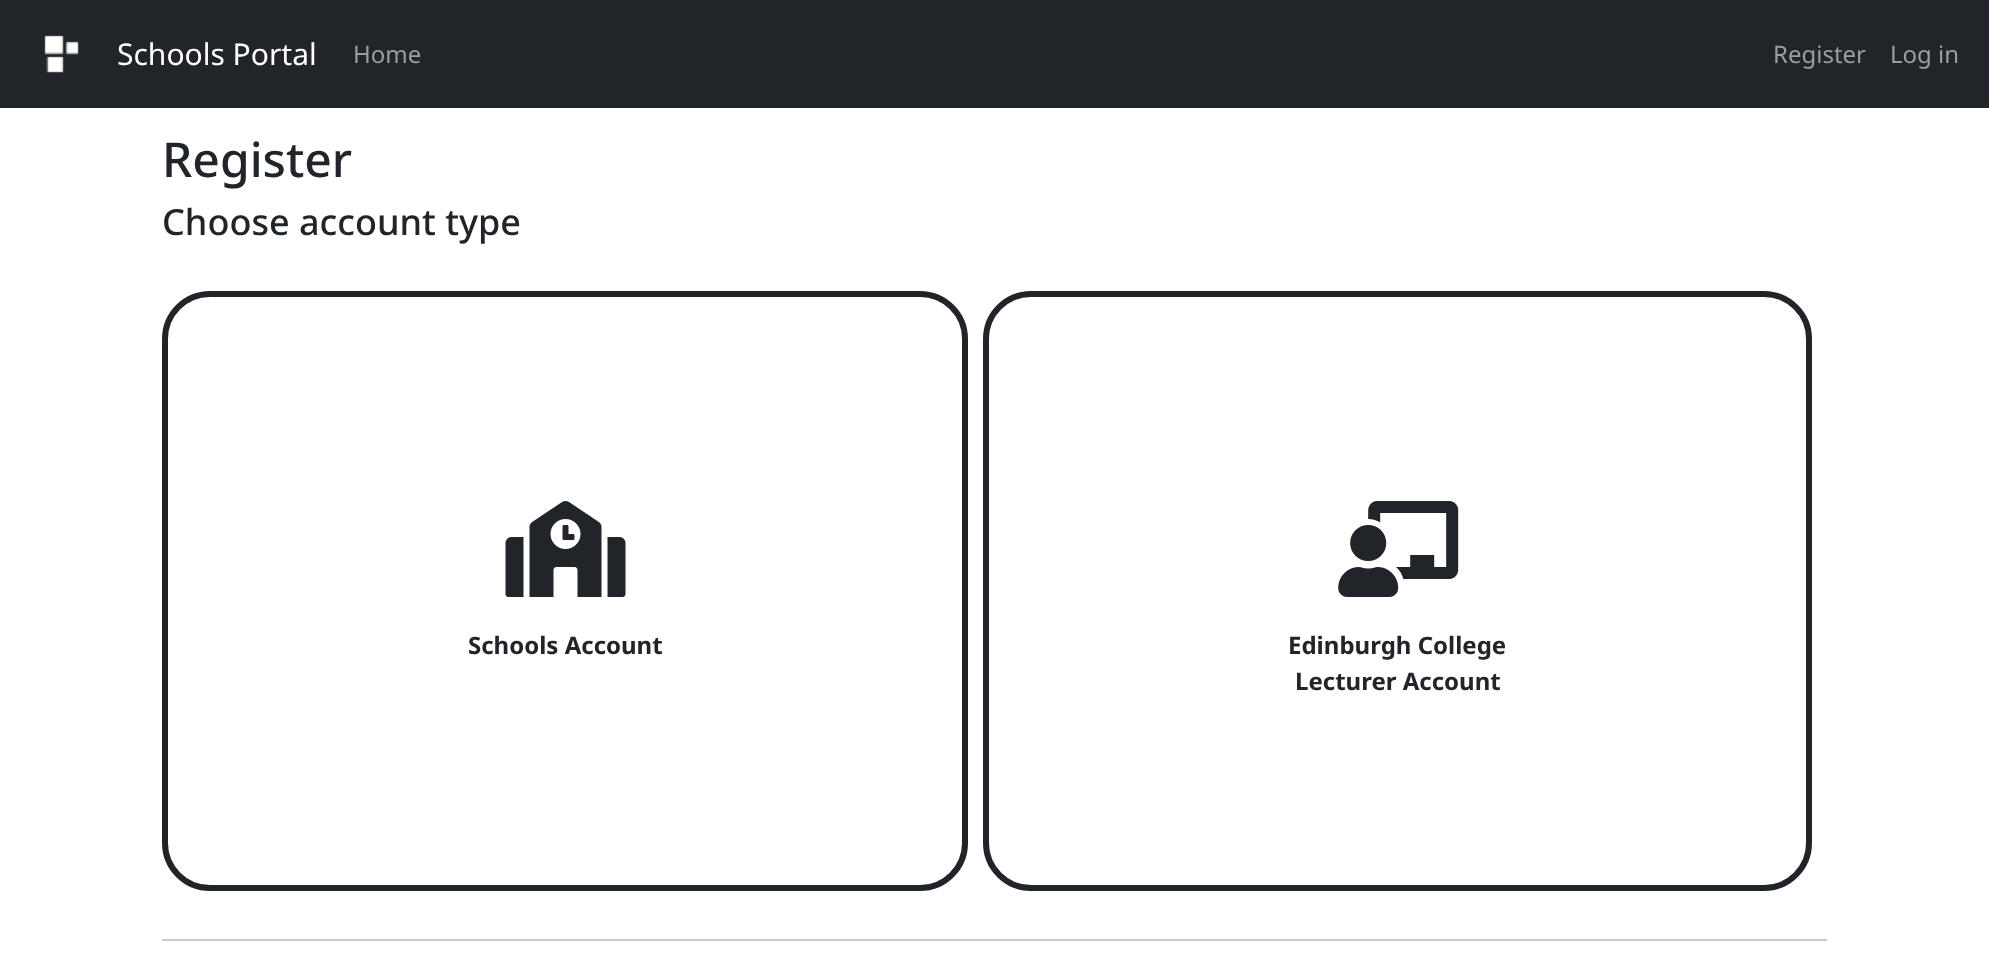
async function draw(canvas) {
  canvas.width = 1989
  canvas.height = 960
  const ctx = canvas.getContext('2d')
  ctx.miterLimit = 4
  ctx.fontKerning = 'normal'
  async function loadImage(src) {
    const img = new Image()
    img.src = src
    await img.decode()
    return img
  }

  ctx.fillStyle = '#fff'
  ctx.fillRect(0, 0, 1989, 960)
  ctx.fillStyle = '#212529'
  ctx.fillRect(0, 0, 1989, 108)
  ctx.drawImage(await loadImage('image0.png'), 44, 35, 35, 38)
  ctx.font = '30px Noto Sans'
  ctx.fillStyle = '#fff'
  ctx.fillText('Schools Portal', 117, 65)
  ctx.font = '24px Noto Sans'
  ctx.fillStyle = '#9b9d9f'
  ctx.fillText('Home', 353, 63)
  ctx.fillText('Register', 1773, 63)
  ctx.fillText('Log in', 1890, 63)
  ctx.font = '500 48px Noto Sans'
  ctx.fillStyle = '#212529'
  ctx.fillText('Register', 162, 177)
  ctx.font = '500 36px Noto Sans'
  ctx.fillText('Choose account type', 162, 235)
  ctx.beginPath()
  ctx.roundRect(165, 294, 800, 594, 45)
  ctx.strokeStyle = '#212529'
  ctx.lineWidth = 6
  ctx.stroke()
  ctx.drawImage(await loadImage('image1.png'), 505, 501, 121, 96)
  ctx.font = 'bold 24px Noto Sans'
  ctx.fillText('Schools Account', 468, 654)
  ctx.beginPath()
  ctx.roundRect(986, 294, 823, 594, 45)
  ctx.stroke()
  ctx.drawImage(await loadImage('image2.png'), 1338, 501, 121, 96)
  ctx.fillText('Edinburgh College', 1288, 654)
  ctx.fillText('Lecturer Account', 1295, 690)
  ctx.fillStyle = '#c8c9ca'
  ctx.fillRect(162, 939, 1665, 2)
}

draw(document.querySelector('canvas'))
